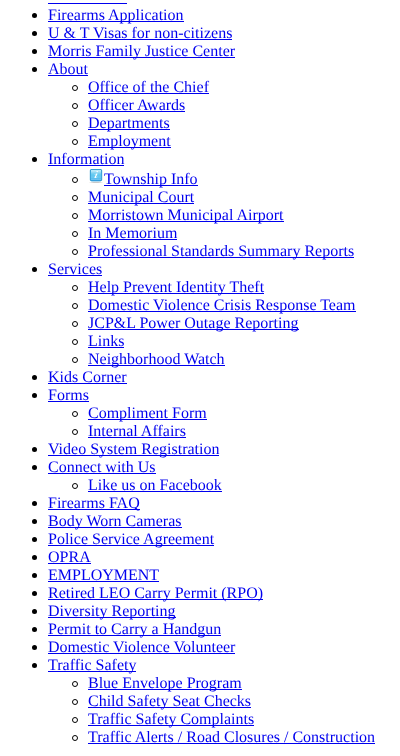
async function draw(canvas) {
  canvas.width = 400
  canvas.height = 756
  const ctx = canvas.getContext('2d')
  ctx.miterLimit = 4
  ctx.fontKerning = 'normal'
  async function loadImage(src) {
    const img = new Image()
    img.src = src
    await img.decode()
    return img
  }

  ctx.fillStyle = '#fff'
  ctx.fillRect(0, 0, 400, 756)
  ctx.fillStyle = '#00e'
  ctx.fillRect(48, 3, 79, 1)
  ctx.fillStyle = '#000'
  ctx.beginPath()
  ctx.arc(34.5, 15.5, 2.5, 0, 2 * Math.PI)
  ctx.fill()
  ctx.fillStyle = '#00e'
  ctx.fillRect(48, 21, 136, 1)
  ctx.font = '16px Liberation Serif'
  ctx.fillText('Firearms Application', 48, 20)
  ctx.fillStyle = '#000'
  ctx.beginPath()
  ctx.arc(34.5, 33.5, 2.5, 0, 2 * Math.PI)
  ctx.fill()
  ctx.fillStyle = '#00e'
  ctx.fillText('U & T Visas for non-citizens', 48, 38)
  ctx.fillRect(48, 39, 184, 1)
  ctx.fillStyle = '#000'
  ctx.beginPath()
  ctx.arc(34.5, 51.5, 2.5, 0, 2 * Math.PI)
  ctx.fill()
  ctx.fillStyle = '#00e'
  ctx.fillRect(48, 57, 187, 1)
  ctx.fillText('Morris Family Justice Center', 48, 56)
  ctx.fillStyle = '#000'
  ctx.beginPath()
  ctx.arc(34.5, 69.5, 2.5, 0, 2 * Math.PI)
  ctx.fill()
  ctx.fillStyle = '#00e'
  ctx.fillText('About', 48, 74)
  ctx.fillRect(48, 75, 40, 1)
  ctx.beginPath()
  ctx.arc(75, 88, 2.5, 0, 2 * Math.PI)
  ctx.strokeStyle = '#000'
  ctx.stroke()
  ctx.fillText('Office of the Chief', 88, 92)
  ctx.fillRect(88, 93, 121, 1)
  ctx.beginPath()
  ctx.arc(75, 106, 2.5, 0, 2 * Math.PI)
  ctx.stroke()
  ctx.fillText('Officer Awards', 88, 110)
  ctx.fillRect(88, 111, 97, 1)
  ctx.beginPath()
  ctx.arc(75, 124, 2.5, 0, 2 * Math.PI)
  ctx.stroke()
  ctx.fillRect(88, 129, 82, 1)
  ctx.fillText('Departments', 88, 128)
  ctx.beginPath()
  ctx.arc(75, 142, 2.5, 0, 2 * Math.PI)
  ctx.stroke()
  ctx.fillRect(88, 147, 83, 1)
  ctx.fillText('Employment', 88, 146)
  ctx.fillStyle = '#000'
  ctx.beginPath()
  ctx.arc(34.5, 159.5, 2.5, 0, 2 * Math.PI)
  ctx.fill()
  ctx.fillStyle = '#00e'
  ctx.fillText('Information', 48, 164)
  ctx.fillRect(48, 165, 76, 1)
  ctx.beginPath()
  ctx.arc(75, 180, 2.5, 0, 2 * Math.PI)
  ctx.stroke()
  ctx.drawImage(await loadImage('image0.png'), 89, 169, 14, 14)
  ctx.fillRect(104, 185, 94, 1)
  ctx.fillText('Township Info', 104, 184)
  ctx.beginPath()
  ctx.arc(75, 198, 2.5, 0, 2 * Math.PI)
  ctx.stroke()
  ctx.fillRect(88, 203, 106, 1)
  ctx.fillText('Municipal Court', 88, 202)
  ctx.beginPath()
  ctx.arc(75, 216, 2.5, 0, 2 * Math.PI)
  ctx.stroke()
  ctx.fillRect(88, 221, 196, 1)
  ctx.fillText('Morristown Municipal Airport', 88, 220)
  ctx.beginPath()
  ctx.arc(75, 234, 2.5, 0, 2 * Math.PI)
  ctx.stroke()
  ctx.fillText('In Memorium', 88, 238)
  ctx.fillRect(88, 239, 89, 1)
  ctx.beginPath()
  ctx.arc(75, 252, 2.5, 0, 2 * Math.PI)
  ctx.stroke()
  ctx.fillRect(88, 257, 266, 1)
  ctx.fillText('Professional Standards Summary Reports', 88, 256)
  ctx.fillStyle = '#000'
  ctx.beginPath()
  ctx.arc(34.5, 269.5, 2.5, 0, 2 * Math.PI)
  ctx.fill()
  ctx.fillStyle = '#00e'
  ctx.fillText('Services', 48, 274)
  ctx.fillRect(48, 275, 54, 1)
  ctx.beginPath()
  ctx.arc(75, 288, 2.5, 0, 2 * Math.PI)
  ctx.stroke()
  ctx.fillRect(88, 293, 176, 1)
  ctx.fillText('Help Prevent Identity Theft', 88, 292)
  ctx.beginPath()
  ctx.arc(75, 306, 2.5, 0, 2 * Math.PI)
  ctx.stroke()
  ctx.fillRect(88, 311, 268, 1)
  ctx.fillText('Domestic Violence Crisis Response Team', 88, 310)
  ctx.beginPath()
  ctx.arc(75, 324, 2.5, 0, 2 * Math.PI)
  ctx.stroke()
  ctx.fillRect(88, 329, 211, 1)
  ctx.fillText('JCP&L Power Outage Reporting', 88, 328)
  ctx.beginPath()
  ctx.arc(75, 342, 2.5, 0, 2 * Math.PI)
  ctx.stroke()
  ctx.fillText('Links', 88, 346)
  ctx.fillRect(88, 347, 36, 1)
  ctx.beginPath()
  ctx.arc(75, 360, 2.5, 0, 2 * Math.PI)
  ctx.stroke()
  ctx.fillRect(88, 365, 137, 1)
  ctx.fillText('Neighborhood Watch', 88, 364)
  ctx.fillStyle = '#000'
  ctx.beginPath()
  ctx.arc(34.5, 377.5, 2.5, 0, 2 * Math.PI)
  ctx.fill()
  ctx.fillStyle = '#00e'
  ctx.fillText('Kids Corner', 48, 382)
  ctx.fillRect(48, 383, 79, 1)
  ctx.fillStyle = '#000'
  ctx.beginPath()
  ctx.arc(34.5, 395.5, 2.5, 0, 2 * Math.PI)
  ctx.fill()
  ctx.fillStyle = '#00e'
  ctx.fillText('Forms', 48, 400)
  ctx.fillRect(48, 401, 41, 1)
  ctx.beginPath()
  ctx.arc(75, 414, 2.5, 0, 2 * Math.PI)
  ctx.stroke()
  ctx.fillRect(88, 419, 119, 1)
  ctx.fillText('Compliment Form', 88, 418)
  ctx.beginPath()
  ctx.arc(75, 432, 2.5, 0, 2 * Math.PI)
  ctx.stroke()
  ctx.fillText('Internal Affairs', 88, 436)
  ctx.fillRect(88, 437, 98, 1)
  ctx.fillStyle = '#000'
  ctx.beginPath()
  ctx.arc(34.5, 449.5, 2.5, 0, 2 * Math.PI)
  ctx.fill()
  ctx.fillStyle = '#00e'
  ctx.fillRect(48, 455, 171, 1)
  ctx.fillText('Video System Registration', 48, 454)
  ctx.fillStyle = '#000'
  ctx.beginPath()
  ctx.arc(34.5, 467.5, 2.5, 0, 2 * Math.PI)
  ctx.fill()
  ctx.fillStyle = '#00e'
  ctx.fillText('Connect with Us', 48, 472)
  ctx.fillRect(48, 473, 108, 1)
  ctx.beginPath()
  ctx.arc(75, 486, 2.5, 0, 2 * Math.PI)
  ctx.stroke()
  ctx.fillText('Like us on Facebook', 88, 490)
  ctx.fillRect(88, 491, 134, 1)
  ctx.fillStyle = '#000'
  ctx.beginPath()
  ctx.arc(34.5, 503.5, 2.5, 0, 2 * Math.PI)
  ctx.fill()
  ctx.fillStyle = '#00e'
  ctx.fillRect(48, 509, 92, 1)
  ctx.fillText('Firearms FAQ', 48, 508)
  ctx.fillStyle = '#000'
  ctx.beginPath()
  ctx.arc(34.5, 521.5, 2.5, 0, 2 * Math.PI)
  ctx.fill()
  ctx.fillStyle = '#00e'
  ctx.fillRect(48, 527, 134, 1)
  ctx.fillText('Body Worn Cameras', 48, 526)
  ctx.fillStyle = '#000'
  ctx.beginPath()
  ctx.arc(34.5, 539.5, 2.5, 0, 2 * Math.PI)
  ctx.fill()
  ctx.fillStyle = '#00e'
  ctx.fillRect(48, 545, 166, 1)
  ctx.fillText('Police Service Agreement', 48, 544)
  ctx.fillStyle = '#000'
  ctx.beginPath()
  ctx.arc(34.5, 557.5, 2.5, 0, 2 * Math.PI)
  ctx.fill()
  ctx.fillStyle = '#00e'
  ctx.fillText('OPRA', 48, 562)
  ctx.fillRect(48, 563, 43, 1)
  ctx.fillStyle = '#000'
  ctx.beginPath()
  ctx.arc(34.5, 575.5, 2.5, 0, 2 * Math.PI)
  ctx.fill()
  ctx.fillStyle = '#00e'
  ctx.fillText('EMPLOYMENT', 48, 580)
  ctx.fillRect(48, 581, 111, 1)
  ctx.fillStyle = '#000'
  ctx.beginPath()
  ctx.arc(34.5, 593.5, 2.5, 0, 2 * Math.PI)
  ctx.fill()
  ctx.fillStyle = '#00e'
  ctx.fillRect(48, 599, 215, 1)
  ctx.fillText('Retired LEO Carry Permit (RPO)', 48, 598)
  ctx.fillStyle = '#000'
  ctx.beginPath()
  ctx.arc(34.5, 611.5, 2.5, 0, 2 * Math.PI)
  ctx.fill()
  ctx.fillStyle = '#00e'
  ctx.fillRect(48, 617, 128, 1)
  ctx.fillText('Diversity Reporting', 48, 616)
  ctx.fillStyle = '#000'
  ctx.beginPath()
  ctx.arc(34.5, 629.5, 2.5, 0, 2 * Math.PI)
  ctx.fill()
  ctx.fillStyle = '#00e'
  ctx.fillRect(48, 635, 173, 1)
  ctx.fillText('Permit to Carry a Handgun', 48, 634)
  ctx.fillStyle = '#000'
  ctx.beginPath()
  ctx.arc(34.5, 647.5, 2.5, 0, 2 * Math.PI)
  ctx.fill()
  ctx.fillStyle = '#00e'
  ctx.fillText('Domestic Violence Volunteer', 48, 652)
  ctx.fillRect(48, 653, 187, 1)
  ctx.fillStyle = '#000'
  ctx.beginPath()
  ctx.arc(34.5, 665.5, 2.5, 0, 2 * Math.PI)
  ctx.fill()
  ctx.fillStyle = '#00e'
  ctx.fillRect(48, 671, 88, 1)
  ctx.fillText('Traffic Safety', 48, 670)
  ctx.beginPath()
  ctx.arc(75, 684, 2.5, 0, 2 * Math.PI)
  ctx.stroke()
  ctx.fillRect(88, 689, 154, 1)
  ctx.fillText('Blue Envelope Program', 88, 688)
  ctx.beginPath()
  ctx.arc(75, 702, 2.5, 0, 2 * Math.PI)
  ctx.stroke()
  ctx.fillRect(88, 707, 163, 1)
  ctx.fillText('Child Safety Seat Checks', 88, 706)
  ctx.beginPath()
  ctx.arc(75, 720, 2.5, 0, 2 * Math.PI)
  ctx.stroke()
  ctx.fillRect(88, 725, 166, 1)
  ctx.fillText('Traffic Safety Complaints', 88, 724)
  ctx.beginPath()
  ctx.arc(75, 738, 2.5, 0, 2 * Math.PI)
  ctx.stroke()
  ctx.fillText('Traffic Alerts / Road Closures / Construction', 88, 742)
  ctx.fillRect(88, 743, 287, 1)
}

draw(document.querySelector('canvas'))
